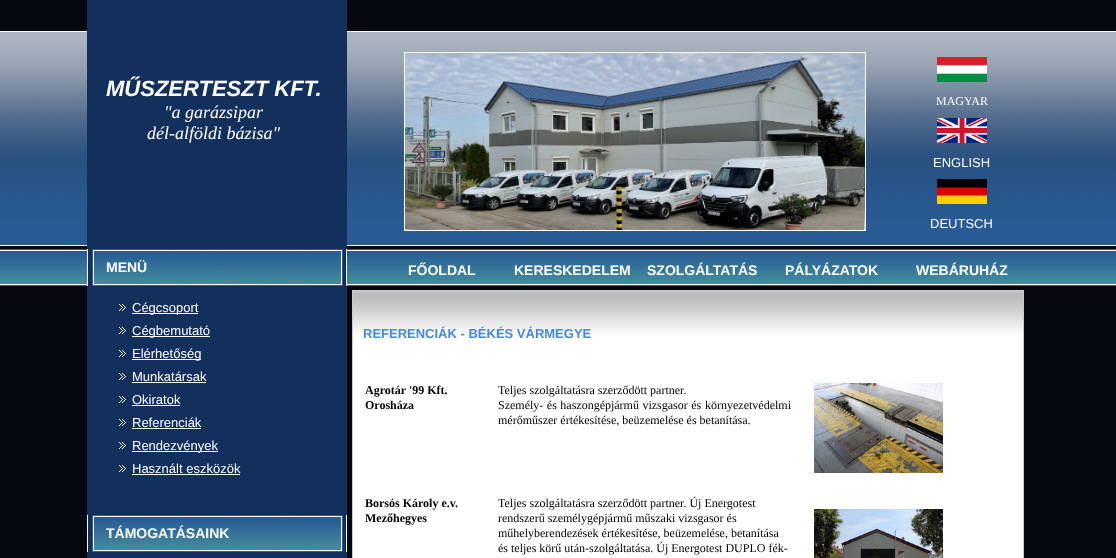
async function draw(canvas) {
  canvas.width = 1116
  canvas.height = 558
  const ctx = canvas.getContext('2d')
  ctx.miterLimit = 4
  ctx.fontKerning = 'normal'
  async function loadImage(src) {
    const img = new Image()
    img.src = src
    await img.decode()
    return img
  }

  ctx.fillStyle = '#050811'
  ctx.fillRect(0, 0, 1116, 558)
  ctx.drawImage(await loadImage('image0.png'), 0, 31, 1116, 255)
  ctx.fillStyle = '#13305d'
  ctx.fillRect(87, 0, 260, 558)
  ctx.font = 'italic bold 22px Liberation Sans'
  ctx.fillStyle = '#fff'
  ctx.fillText('MŰSZERTESZT KFT.', 106, 96)
  ctx.font = 'italic 18px Liberation Serif'
  ctx.fillText('"a garázsipar', 164, 118)
  ctx.fillText('dél-alföldi bázisa"', 147, 139)
  ctx.strokeStyle = '#fff'
  ctx.strokeRect(404.5, 52.5, 461, 178)
  ctx.drawImage(await loadImage('image1.png'), 405, 53, 460, 177)
  ctx.drawImage(await loadImage('image2.png'), 937, 57, 50, 25)
  ctx.font = '12px Liberation Serif'
  ctx.fillText('MAGYAR', 936, 105)
  ctx.drawImage(await loadImage('image3.png'), 937, 118, 50, 25)
  ctx.font = '13px Liberation Sans'
  ctx.fillText('ENGLISH', 933, 167)
  ctx.drawImage(await loadImage('image4.png'), 937, 179, 50, 25)
  ctx.fillText('DEUTSCH', 930, 228)
  ctx.font = 'bold 14px Liberation Sans'
  ctx.fillText('FŐOLDAL', 408, 275)
  ctx.fillText('KERESKEDELEM', 514, 275)
  ctx.fillText('SZOLGÁLTATÁS', 647, 275)
  ctx.fillText('PÁLYÁZATOK', 785, 275)
  ctx.fillText('WEBÁRUHÁZ', 916, 275)
  ctx.fillRect(353, 335, 670, 223)
  ctx.drawImage(await loadImage('image5.png'), 353, 291, 670, 44)
  ctx.strokeStyle = '#c9c9c9'
  ctx.strokeRect(352.5, 290.5, 671, 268)
  ctx.font = 'bold 13px Liberation Sans'
  ctx.fillStyle = '#4889d7'
  ctx.fillText('REFERENCIÁK - BÉKÉS VÁRMEGYE', 363, 338)
  ctx.font = 'bold 12px Liberation Serif'
  ctx.fillStyle = '#000'
  ctx.fillText('Agrotár \'99 Kft.', 365, 394)
  ctx.fillText('Orosháza', 365, 409)
  ctx.font = '12px Liberation Serif'
  ctx.fillText('Teljes szolgáltatásra szerződött partner.', 498, 394)
  ctx.wordSpacing = '0.5px'
  ctx.fillText('Személy- és haszongépjármű vizsgasor és', 498, 409)
  ctx.wordSpacing = '0px'
  ctx.fillText('környezetvédelmi', 705, 409)
  ctx.fillText('mérőműszer értékesítése, beüzemelése és betanítása.', 498, 424)
  ctx.drawImage(await loadImage('image6.png'), 814, 383, 129, 90)
  ctx.font = 'bold 12px Liberation Serif'
  ctx.fillText('Borsós Károly e.v.', 365, 507)
  ctx.fillText('Mezőhegyes', 365, 522)
  ctx.font = '12px Liberation Serif'
  ctx.fillText('Teljes szolgáltatásra szerződött partner. Új Energotest', 498, 507)
  ctx.fillText('rendszerű személygépjármű műszaki vizsgasor és', 498, 522)
  ctx.fillText('műhelyberendezések értékesítése, beüzemelése, betanítása', 498, 537)
  ctx.fillText('és teljes körű után-szolgáltatása. Új Energotest DUPLO fék-', 498, 552)
  ctx.drawImage(await loadImage('image7.png'), 814, 509, 129, 49)
  ctx.drawImage(await loadImage('image8.png'), 87, 249, 260, 37)
  ctx.font = 'bold 14px Liberation Sans'
  ctx.fillStyle = '#fff'
  ctx.fillText('MENÜ', 106, 272)
  ctx.drawImage(await loadImage('image9.png'), 119, 304, 7, 7)
  ctx.fillRect(132, 313, 66, 1)
  ctx.font = '13px Liberation Sans'
  ctx.fillText('Cégcsoport', 132, 312)
  ctx.drawImage(await loadImage('image9.png'), 119, 327, 7, 7)
  ctx.fillRect(132, 336, 78, 1)
  ctx.fillText('Cégbemutató', 132, 335)
  ctx.drawImage(await loadImage('image9.png'), 119, 350, 7, 7)
  ctx.fillRect(132, 359, 69, 1)
  ctx.fillText('Elérhetőség', 132, 358)
  ctx.drawImage(await loadImage('image9.png'), 119, 373, 7, 7)
  ctx.fillText('Munkatársak', 132, 381)
  ctx.fillRect(132, 382, 74, 1)
  ctx.drawImage(await loadImage('image9.png'), 119, 396, 7, 7)
  ctx.fillText('Okiratok', 132, 404)
  ctx.fillRect(132, 405, 48, 1)
  ctx.drawImage(await loadImage('image9.png'), 119, 419, 7, 7)
  ctx.fillText('Referenciák', 132, 427)
  ctx.fillRect(132, 428, 69, 1)
  ctx.drawImage(await loadImage('image9.png'), 119, 442, 7, 7)
  ctx.fillRect(132, 451, 86, 1)
  ctx.fillText('Rendezvények', 132, 450)
  ctx.drawImage(await loadImage('image9.png'), 119, 465, 7, 7)
  ctx.fillText('Használt eszközök', 132, 473)
  ctx.fillRect(132, 474, 108, 1)
  ctx.drawImage(await loadImage('image8.png'), 87, 515, 260, 37)
  ctx.font = 'bold 14px Liberation Sans'
  ctx.fillText('TÁMOGATÁSAINK', 106, 538)
}

draw(document.querySelector('canvas'))
